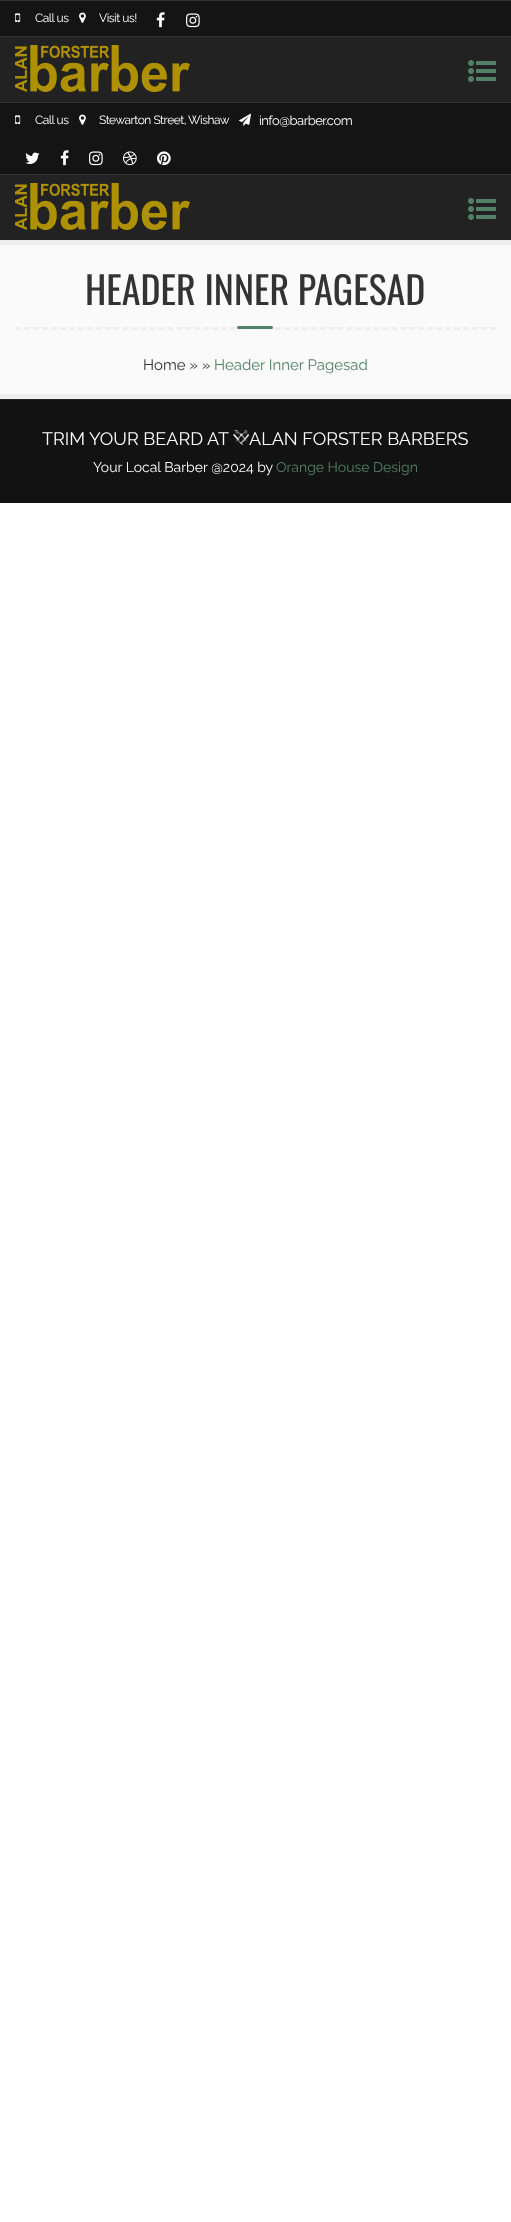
async function draw(canvas) {
  canvas.width = 511
  canvas.height = 2222
  const ctx = canvas.getContext('2d')
  ctx.miterLimit = 4
  ctx.fontKerning = 'normal'
  async function loadImage(src) {
    const img = new Image()
    img.src = src
    await img.decode()
    return img
  }

  ctx.fillStyle = '#fff'
  ctx.fillRect(0, 0, 511, 2222)
  ctx.fillStyle = '#141414'
  ctx.fillRect(0, 1, 511, 35)
  ctx.fillStyle = '#333'
  ctx.fillRect(0, 0, 511, 1)
  ctx.fillRect(0, 36, 511, 1)
  ctx.drawImage(await loadImage('image0.png'), 15, 13, 6, 9)
  ctx.letterSpacing = '-0.5px'
  ctx.font = '12px Raleway'
  ctx.fillStyle = '#fff'
  ctx.fillText('Call us', 35, 22)
  ctx.drawImage(await loadImage('image1.png'), 79, 12, 7, 11)
  ctx.fillText('Visit us!', 99, 22)
  ctx.drawImage(await loadImage('image2.png'), 156, 12, 9, 16)
  ctx.drawImage(await loadImage('image3.png'), 186, 13, 14, 15)
  ctx.fillStyle = '#222'
  ctx.fillRect(0, 37, 511, 65)
  ctx.drawImage(await loadImage('image4.png'), 15, 45, 175, 47)
  ctx.drawImage(await loadImage('image5.png'), 468, 60, 28, 22)
  ctx.fillStyle = '#141414'
  ctx.fillRect(0, 103, 511, 71)
  ctx.fillStyle = '#333'
  ctx.fillRect(0, 102, 511, 1)
  ctx.fillRect(0, 174, 511, 1)
  ctx.drawImage(await loadImage('image0.png'), 15, 115, 6, 9)
  ctx.fillStyle = '#fff'
  ctx.fillText('Call us', 35, 124)
  ctx.drawImage(await loadImage('image1.png'), 79, 114, 7, 11)
  ctx.fillText('Stewarton Street, Wishaw', 99, 124)
  ctx.drawImage(await loadImage('image6.png'), 239, 113, 12, 13)
  ctx.font = '13px Raleway'
  ctx.fillText('info@barber.com', 259, 125)
  ctx.drawImage(await loadImage('image7.png'), 25, 152, 15, 12)
  ctx.drawImage(await loadImage('image2.png'), 60, 150, 9, 16)
  ctx.drawImage(await loadImage('image3.png'), 89, 151, 14, 15)
  ctx.drawImage(await loadImage('image8.png'), 123, 151, 14, 15)
  ctx.drawImage(await loadImage('image9.png'), 157, 151, 14, 15)
  ctx.fillStyle = '#222'
  ctx.fillRect(0, 175, 511, 65)
  ctx.drawImage(await loadImage('image4.png'), 15, 183, 175, 47)
  ctx.drawImage(await loadImage('image5.png'), 468, 198, 28, 22)
  ctx.fillStyle = '#fafafa'
  ctx.fillRect(0, 245, 511, 149)
  ctx.fillStyle = '#eee'
  ctx.fillRect(0, 240, 511, 5)
  ctx.fillRect(0, 394, 511, 5)
  ctx.beginPath()
  ctx.moveTo(15, 328.5)
  ctx.lineTo(496, 328.5)
  ctx.strokeStyle = '#eee'
  ctx.lineWidth = 3
  ctx.setLineDash([6, 2.96])
  ctx.stroke()
  ctx.letterSpacing = '0px'
  ctx.font = '38px Oswald'
  ctx.fillStyle = '#333'
  ctx.fillText('HEADER INNER PAGESAD', 85, 305)
  ctx.fillStyle = '#538167'
  ctx.beginPath()
  ctx.roundRect(237, 326, 36, 3, 1.5)
  ctx.fill()
  ctx.font = '15px Raleway'
  ctx.fillStyle = '#333'
  ctx.fillText('Home » »', 143, 370)
  ctx.fillStyle = '#538167'
  ctx.fillText('Header Inner Pagesad', 214, 370)
  ctx.fillStyle = '#121212'
  ctx.fillRect(0, 400, 511, 103)
  ctx.fillStyle = '#232323'
  ctx.fillRect(0, 399, 511, 1)
  ctx.font = '18px Raleway'
  ctx.fillStyle = '#fff'
  ctx.fillText('TRIM YOUR BEARD AT', 42, 445)
  ctx.drawImage(await loadImage('image10.png'), 233, 430, 16, 15)
  ctx.fillText('ALAN FORSTER BARBERS', 249, 445)
  ctx.font = '14px Raleway'
  ctx.fillText('Your Local Barber @2024 by', 93, 472)
  ctx.fillStyle = '#538167'
  ctx.fillText('Orange House Design', 276, 472)
}

draw(document.querySelector('canvas'))
